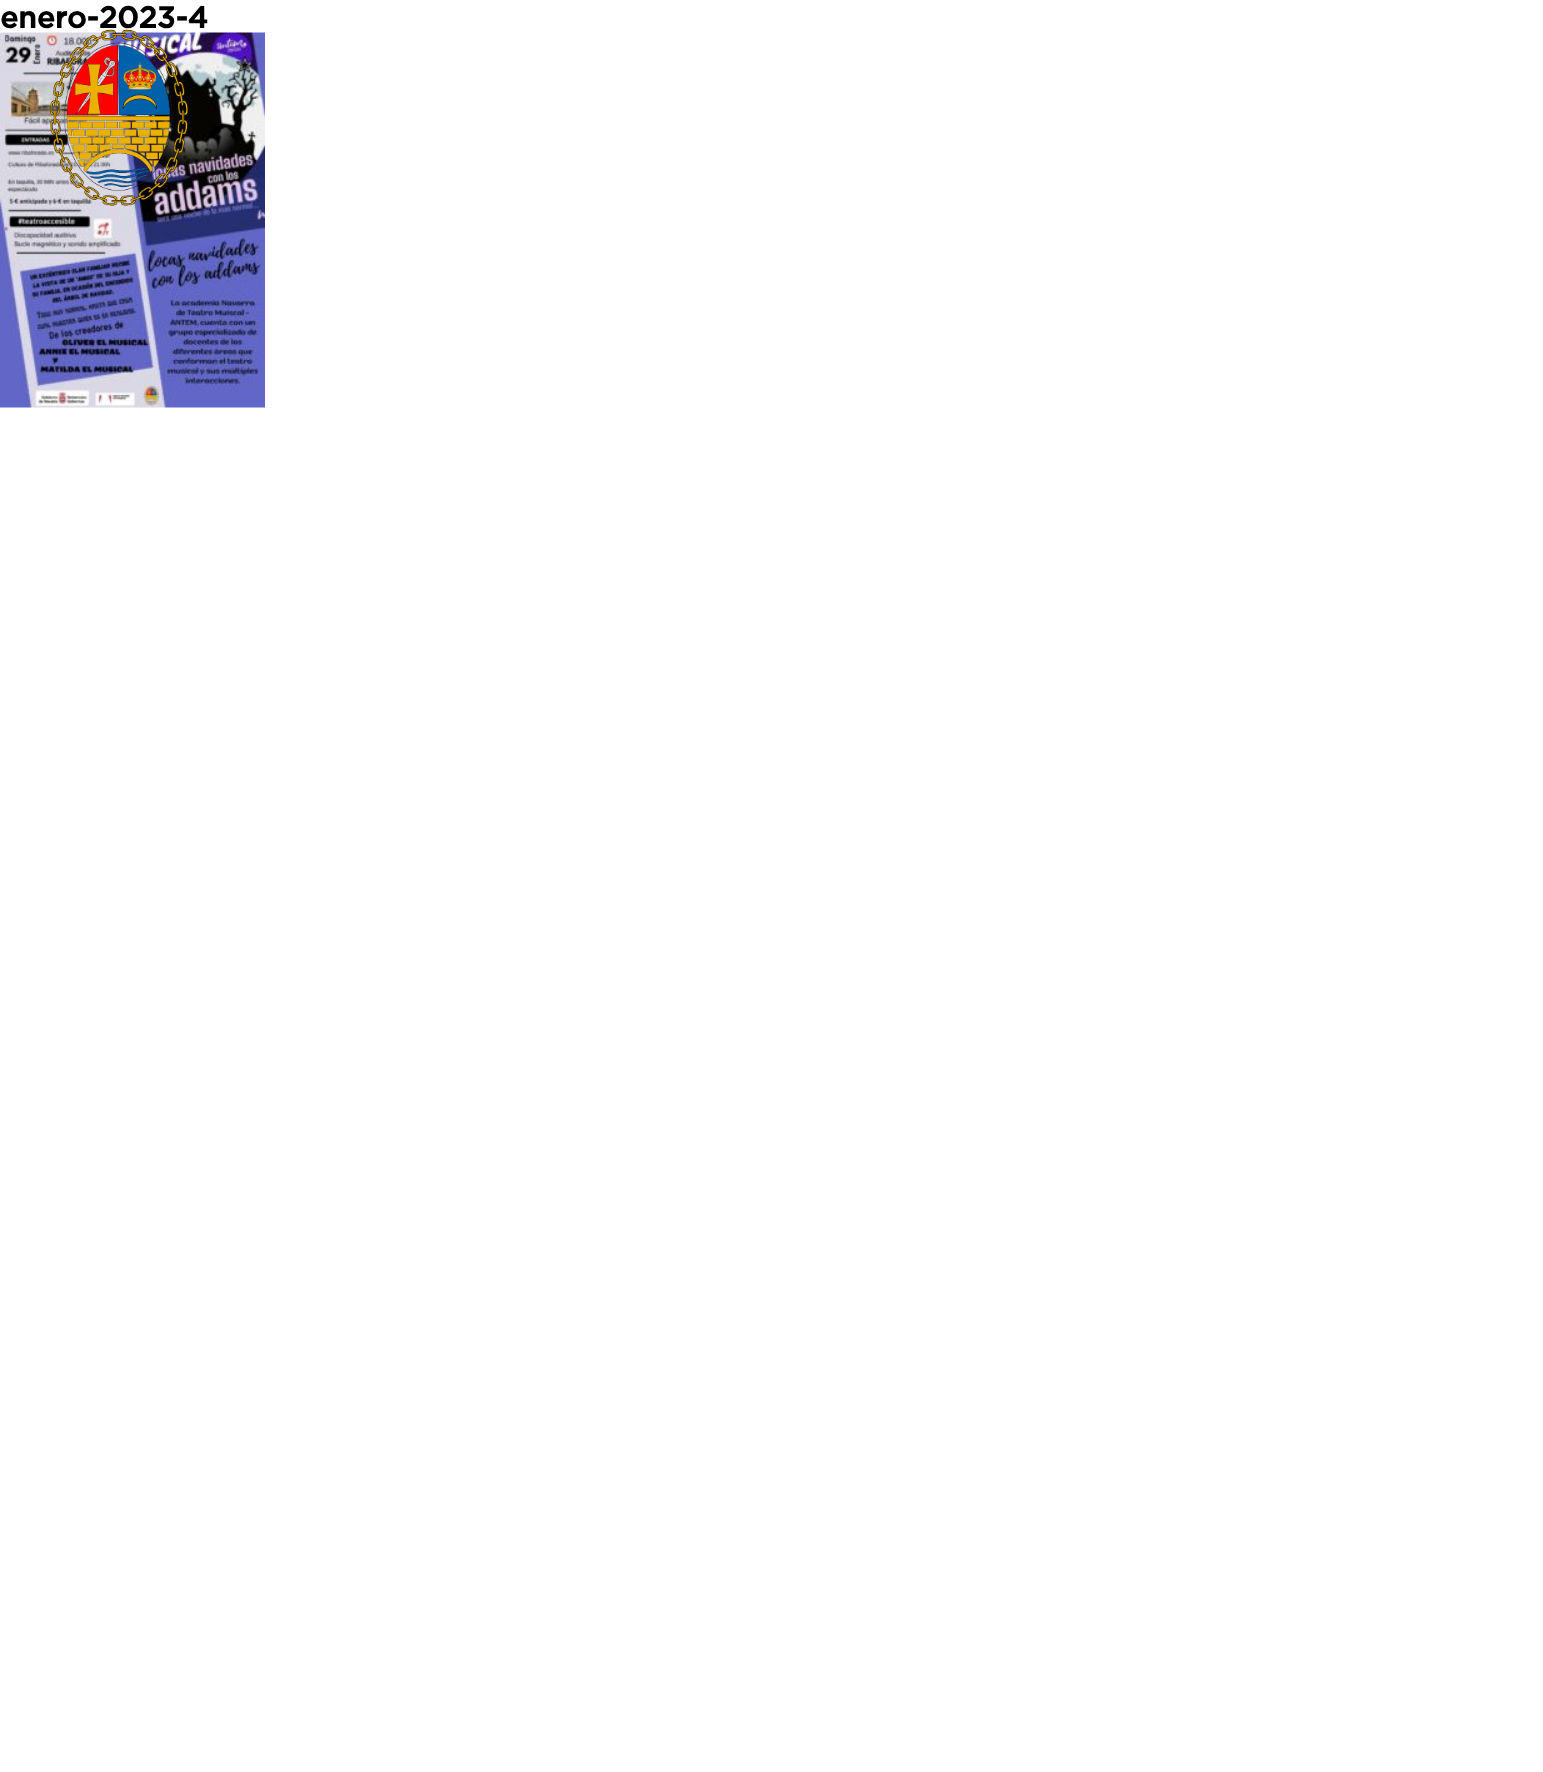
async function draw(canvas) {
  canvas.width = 1543
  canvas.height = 1772
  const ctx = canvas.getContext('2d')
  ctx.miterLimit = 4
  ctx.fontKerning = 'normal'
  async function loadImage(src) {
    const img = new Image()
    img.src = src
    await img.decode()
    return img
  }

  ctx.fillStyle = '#fff'
  ctx.fillRect(0, 0, 1543, 1772)
  ctx.font = 'bold 30px Gotham'
  ctx.fillStyle = '#000'
  ctx.fillText('enero-2023-4', 0, 28)
  ctx.drawImage(await loadImage('image1.png'), 0, 32, 265, 376)
  ctx.drawImage(await loadImage('image0.png'), 50, 29, 139, 177)
}

draw(document.querySelector('canvas'))
